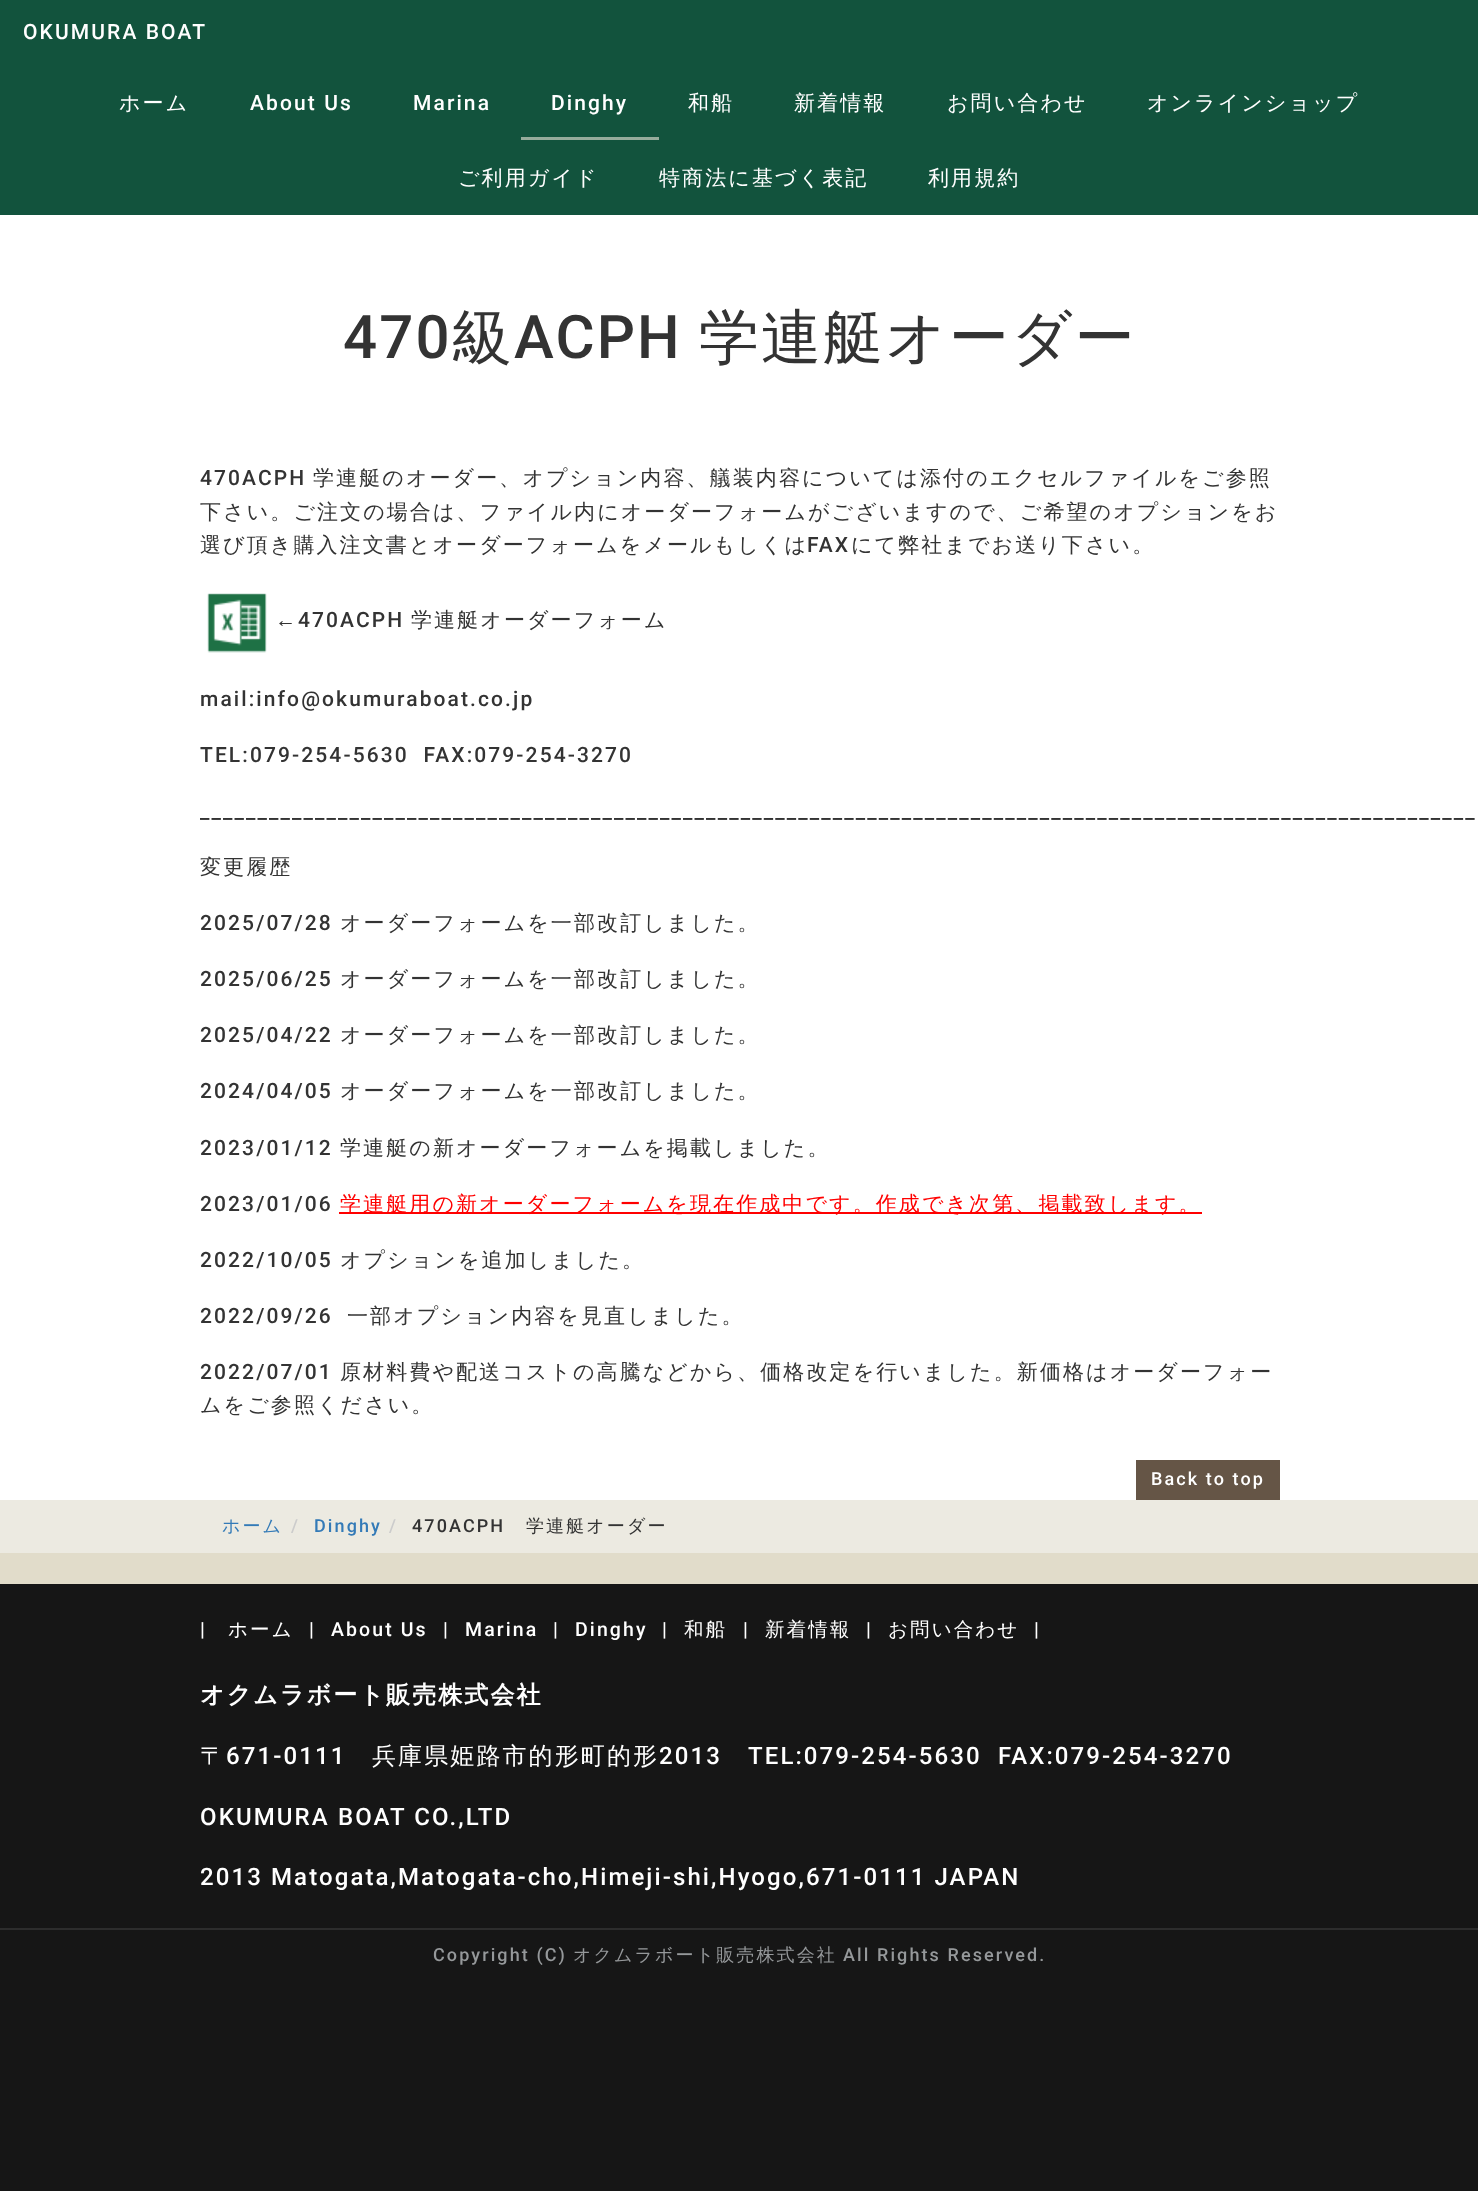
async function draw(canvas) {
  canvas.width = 1478
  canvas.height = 2191
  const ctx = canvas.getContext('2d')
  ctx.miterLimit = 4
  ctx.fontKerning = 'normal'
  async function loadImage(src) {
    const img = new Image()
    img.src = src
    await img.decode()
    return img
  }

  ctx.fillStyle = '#161616'
  ctx.fillRect(0, 0, 1478, 2191)
  ctx.fillStyle = '#fff'
  ctx.fillRect(0, 215, 1478, 1285)
  ctx.fillStyle = '#12533d'
  ctx.fillRect(0, 0, 1478, 215)
  ctx.letterSpacing = '2.1px'
  ctx.font = '500 21px Roboto'
  ctx.fillStyle = '#fff'
  ctx.fillText('OKUMURA BOAT', 23, 39)
  ctx.font = '500 21px WenQuanYi Zen Hei'
  ctx.fillText('ホーム', 119, 110)
  ctx.font = '500 21px Roboto'
  ctx.fillText('About Us', 250, 110)
  ctx.fillText('Marina', 413, 110)
  ctx.fillText('Dinghy', 551, 110)
  ctx.fillStyle = '#96ac9c'
  ctx.fillRect(521, 137, 138, 3)
  ctx.font = '500 21px WenQuanYi Zen Hei'
  ctx.fillStyle = '#fff'
  ctx.fillText('和船', 688, 110)
  ctx.fillText('新着情報', 794, 110)
  ctx.fillText('お問い合わせ', 947, 110)
  ctx.fillText('オンラインショップ', 1147, 110)
  ctx.fillText('ご利用ガイド', 458, 185)
  ctx.fillText('特商法に基づく表記', 659, 185)
  ctx.fillText('利用規約', 928, 185)
  ctx.font = '500 60px Roboto'
  ctx.fillStyle = '#333'
  ctx.fillText('470', 343, 358)
  ctx.font = '500 60px WenQuanYi Zen Hei'
  ctx.fillText('級', 452, 358)
  ctx.font = '500 60px Roboto'
  ctx.fillText('ACPH', 514, 358)
  ctx.font = '500 60px WenQuanYi Zen Hei'
  ctx.fillText('学連艇オーダー', 699, 358)
  ctx.font = '500 21px Roboto'
  ctx.fillText('470ACPH', 200, 485)
  ctx.font = '500 21px WenQuanYi Zen Hei'
  ctx.fillText('学連艇のオーダー、オプション内容、艤装内容については添付のエクセルファイルをご参照', 313, 485)
  ctx.fillText('下さい。ご注文の場合は、ファイル内にオーダーフォームがございますので、ご希望のオプションをお', 200, 519)
  ctx.fillText('選び頂き購入注文書とオーダーフォームをメールもしくは', 200, 552)
  ctx.font = '500 21px Roboto'
  ctx.fillText('FAX', 807, 552)
  ctx.font = '500 21px WenQuanYi Zen Hei'
  ctx.fillText('にて弊社までお送り下さい。', 851, 552)
  ctx.drawImage(await loadImage('image0.png'), 207, 593, 60, 60)
  ctx.font = '21px Liberation Sans'
  ctx.fillText('←', 275, 627)
  ctx.font = '500 21px Roboto'
  ctx.fillText('470ACPH', 298, 627)
  ctx.font = '500 21px WenQuanYi Zen Hei'
  ctx.fillText('学連艇オーダーフォーム', 411, 627)
  ctx.font = '500 21px Roboto'
  ctx.fillText('mail:info@okumuraboat.co.jp', 200, 706)
  ctx.fillText('TEL:079-254-5630  FAX:079-254-3270', 200, 762)
  ctx.fillText('_______________________________________________________________________________________________________________', 200, 818)
  ctx.font = '500 21px WenQuanYi Zen Hei'
  ctx.fillText('変更履歴', 200, 874)
  ctx.font = '500 21px Roboto'
  ctx.fillText('2025/07/28', 200, 930)
  ctx.font = '500 21px WenQuanYi Zen Hei'
  ctx.fillText('オーダーフォームを一部改訂しました。', 340, 930)
  ctx.font = '500 21px Roboto'
  ctx.fillText('2025/06/25', 200, 986)
  ctx.font = '500 21px WenQuanYi Zen Hei'
  ctx.fillText('オーダーフォームを一部改訂しました。', 340, 986)
  ctx.font = '500 21px Roboto'
  ctx.fillText('2025/04/22', 200, 1042)
  ctx.font = '500 21px WenQuanYi Zen Hei'
  ctx.fillText('オーダーフォームを一部改訂しました。', 340, 1042)
  ctx.font = '500 21px Roboto'
  ctx.fillText('2024/04/05', 200, 1098)
  ctx.font = '500 21px WenQuanYi Zen Hei'
  ctx.fillText('オーダーフォームを一部改訂しました。', 340, 1098)
  ctx.font = '500 21px Roboto'
  ctx.fillText('2023/01/12', 200, 1155)
  ctx.font = '500 21px WenQuanYi Zen Hei'
  ctx.fillText('学連艇の新オーダーフォームを掲載しました。', 340, 1155)
  ctx.font = '500 21px Roboto'
  ctx.fillText('2023/01/06', 200, 1211)
  ctx.fillStyle = '#f00'
  ctx.fillRect(339, 1212, 863, 2)
  ctx.font = '500 21px WenQuanYi Zen Hei'
  ctx.fillText('学連艇用の新オーダーフォームを現在作成中です。作成でき次第、掲載致します。', 340, 1211)
  ctx.font = '500 21px Roboto'
  ctx.fillStyle = '#333'
  ctx.fillText('2022/10/05', 200, 1267)
  ctx.font = '500 21px WenQuanYi Zen Hei'
  ctx.fillText('オプションを追加しました。', 340, 1267)
  ctx.font = '500 21px Roboto'
  ctx.fillText('2022/09/26', 200, 1323)
  ctx.font = '500 21px WenQuanYi Zen Hei'
  ctx.fillText('一部オプション内容を見直しました。', 347, 1323)
  ctx.font = '500 21px Roboto'
  ctx.fillText('2022/07/01', 200, 1379)
  ctx.font = '500 21px WenQuanYi Zen Hei'
  ctx.fillText('原材料費や配送コストの高騰などから、価格改定を行いました。新価格はオーダーフォー', 340, 1379)
  ctx.fillText('ムをご参照ください。', 200, 1412)
  ctx.fillStyle = '#655546'
  ctx.fillRect(1136, 1460, 144, 40)
  ctx.font = '500 18px Roboto'
  ctx.fillStyle = '#fff'
  ctx.fillText('Back to top', 1151, 1485)
  ctx.fillStyle = '#eceae1'
  ctx.fillRect(0, 1500, 1478, 53)
  ctx.font = '500 18px WenQuanYi Zen Hei'
  ctx.fillStyle = '#337ab7'
  ctx.fillText('ホーム', 222, 1532)
  ctx.font = '500 18px Roboto'
  ctx.fillStyle = '#ccc'
  ctx.fillText('/', 291, 1532)
  ctx.fillStyle = '#337ab7'
  ctx.fillText('Dinghy', 314, 1532)
  ctx.fillStyle = '#ccc'
  ctx.fillText('/', 389, 1532)
  ctx.fillStyle = '#333'
  ctx.fillText('470ACPH', 412, 1532)
  ctx.font = '500 18px WenQuanYi Zen Hei'
  ctx.fillText('学連艇オーダー', 526, 1532)
  ctx.fillStyle = '#e1dcca'
  ctx.fillRect(0, 1553, 1478, 31)
  ctx.font = '500 19.5px Roboto'
  ctx.fillStyle = '#fff'
  ctx.fillText('|', 200, 1636)
  ctx.font = '500 19.5px WenQuanYi Zen Hei'
  ctx.fillText('ホーム', 228, 1636)
  ctx.font = '500 19.5px Roboto'
  ctx.fillText('|', 309, 1636)
  ctx.fillText('About Us', 331, 1636)
  ctx.fillText('|', 443, 1636)
  ctx.fillText('Marina', 465, 1636)
  ctx.fillText('|', 553, 1636)
  ctx.fillText('Dinghy', 575, 1636)
  ctx.fillText('|', 662, 1636)
  ctx.font = '500 19.5px WenQuanYi Zen Hei'
  ctx.fillText('和船', 684, 1636)
  ctx.font = '500 19.5px Roboto'
  ctx.fillText('|', 743, 1636)
  ctx.font = '500 19.5px WenQuanYi Zen Hei'
  ctx.fillText('新着情報', 765, 1636)
  ctx.font = '500 19.5px Roboto'
  ctx.fillText('|', 866, 1636)
  ctx.font = '500 19.5px WenQuanYi Zen Hei'
  ctx.fillText('お問い合わせ', 888, 1636)
  ctx.font = '500 19.5px Roboto'
  ctx.fillText('|', 1034, 1636)
  ctx.font = 'bold 24px WenQuanYi Zen Hei'
  ctx.fillText('オクムラボート販売株式会社', 200, 1703)
  ctx.font = '500 24px WenQuanYi Zen Hei'
  ctx.fillText('〒', 200, 1764)
  ctx.font = '500 24px Roboto'
  ctx.fillText('671-0111', 226, 1764)
  ctx.font = '500 24px WenQuanYi Zen Hei'
  ctx.fillText('兵庫県姫路市的形町的形', 372, 1764)
  ctx.font = '500 24px Roboto'
  ctx.fillText('2013', 659, 1764)
  ctx.fillText('TEL:079-254-5630  FAX:079-254-3270', 748, 1764)
  ctx.fillText('OKUMURA BOAT CO.,LTD', 200, 1825)
  ctx.fillText('2013 Matogata,Matogata-cho,Himeji-shi,Hyogo,671-0111 JAPAN', 200, 1885)
  ctx.fillStyle = '#2d2d2d'
  ctx.fillRect(0, 1928, 1478, 2)
  ctx.font = '500 18px Roboto'
  ctx.fillStyle = '#95989a'
  ctx.fillText('Copyright (C)', 433, 1961)
  ctx.font = '500 18px WenQuanYi Zen Hei'
  ctx.fillText('オクムラボート販売株式会社', 573, 1961)
  ctx.font = '500 18px Roboto'
  ctx.fillText('All Rights Reserved.', 843, 1961)
}

draw(document.querySelector('canvas'))
